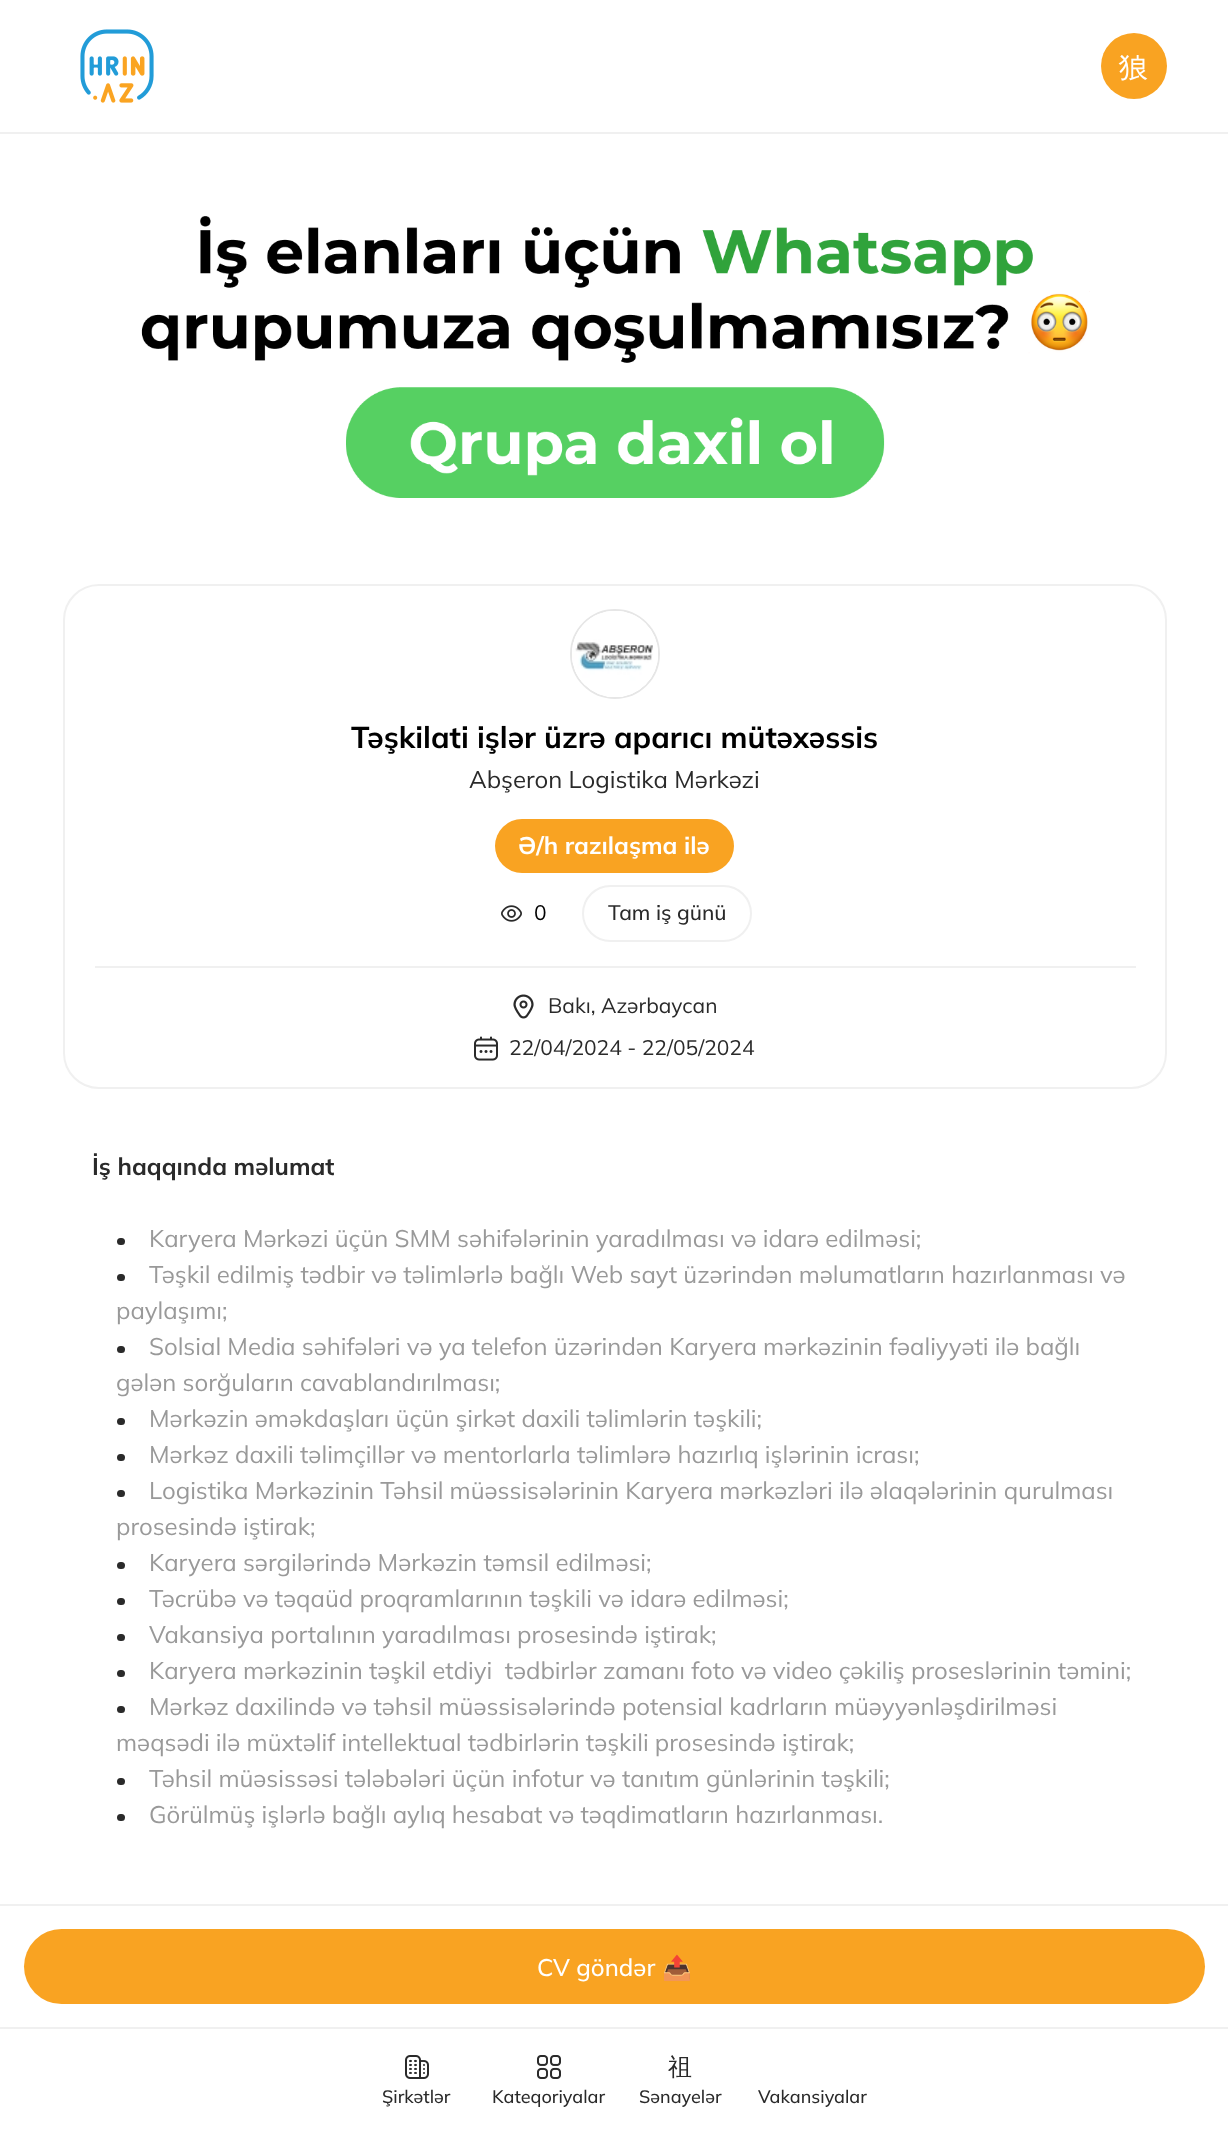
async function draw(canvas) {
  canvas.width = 1228
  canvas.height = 2136
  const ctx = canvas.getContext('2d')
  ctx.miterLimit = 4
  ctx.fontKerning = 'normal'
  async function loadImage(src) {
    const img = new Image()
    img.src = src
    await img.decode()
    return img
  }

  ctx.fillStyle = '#fff'
  ctx.fillRect(0, 0, 1228, 2136)
  ctx.fillStyle = '#f0f0f0'
  ctx.fillRect(0, 132, 1228, 2)
  ctx.drawImage(await loadImage('image0.png'), 80, 29, 74, 74)
  ctx.fillStyle = '#f9a322'
  ctx.beginPath()
  ctx.arc(1134, 66, 33, 0, 2 * Math.PI)
  ctx.fill()
  ctx.font = '500 30px WenQuanYi Zen Hei'
  ctx.fillStyle = '#fff'
  ctx.fillText('狼', 1118, 77)
  ctx.drawImage(await loadImage('image1.png'), 141, 216, 949, 282)
  ctx.beginPath()
  ctx.roundRect(64, 585, 1102, 503, 35)
  ctx.strokeStyle = '#f0f0f0'
  ctx.lineWidth = 2
  ctx.stroke()
  ctx.beginPath()
  ctx.arc(615, 654, 44, 0, 2 * Math.PI)
  ctx.strokeStyle = '#e6e6e6'
  ctx.stroke()
  ctx.drawImage(await loadImage('image2.png'), 572, 611, 86, 86)
  ctx.font = 'bold 30px Mulish'
  ctx.fillStyle = '#000'
  ctx.fillText('Təşkilati işlər üzrə aparıcı mütəxəssis', 351, 748)
  ctx.font = '24px Mulish'
  ctx.fillStyle = '#2a2a2a'
  ctx.fillText('Abşeron Logistika Mərkəzi', 469, 788)
  ctx.fillStyle = '#f9a322'
  ctx.beginPath()
  ctx.roundRect(495, 819, 239, 54, 27)
  ctx.fill()
  ctx.font = 'bold 24px Mulish'
  ctx.fillStyle = '#fff'
  ctx.fillText('Ə/h razılaşma ilə', 518, 854)
  ctx.drawImage(await loadImage('image3.png'), 501, 905, 21, 17)
  ctx.font = '21px Mulish'
  ctx.fillStyle = '#000'
  ctx.fillText('0', 534, 920)
  ctx.beginPath()
  ctx.roundRect(583, 886, 168, 55, 27.5)
  ctx.strokeStyle = '#f0f0f0'
  ctx.stroke()
  ctx.font = '500 21px Mulish'
  ctx.fillStyle = '#2a2a2a'
  ctx.fillText('Tam iş günü', 608, 920)
  ctx.fillStyle = '#f0f0f0'
  ctx.fillRect(95, 966, 1041, 2)
  ctx.drawImage(await loadImage('image4.png'), 513, 994, 21, 25)
  ctx.font = '21px Mulish'
  ctx.fillStyle = '#2a2a2a'
  ctx.fillText('Bakı, Azərbaycan', 548, 1013)
  ctx.drawImage(await loadImage('image5.png'), 474, 1036, 24, 25)
  ctx.fillText('22/04/2024 - 22/05/2024', 509, 1055)
  ctx.font = 'bold 24px Mulish'
  ctx.fillText('İş haqqında məlumat', 92, 1175)
  ctx.beginPath()
  ctx.roundRect(117, 1238, 8, 7, 3.5)
  ctx.fill()
  ctx.font = '24px Mulish'
  ctx.fillStyle = '#999'
  ctx.fillText('Karyera Mərkəzi üçün SMM səhifələrinin yaradılması və idarə edilməsi;', 149, 1247)
  ctx.fillStyle = '#2a2a2a'
  ctx.beginPath()
  ctx.roundRect(117, 1274, 8, 7, 3.5)
  ctx.fill()
  ctx.fillStyle = '#999'
  ctx.fillText('Təşkil edilmiş tədbir və təlimlərlə bağlı Web sayt üzərindən məlumatların hazırlanması və', 149, 1283)
  ctx.fillText('paylaşımı;', 116, 1319)
  ctx.fillStyle = '#2a2a2a'
  ctx.beginPath()
  ctx.roundRect(117, 1346, 8, 7, 3.5)
  ctx.fill()
  ctx.fillStyle = '#999'
  ctx.fillText('Solsial Media səhifələri və ya telefon üzərindən Karyera mərkəzinin fəaliyyəti ilə bağlı', 149, 1355)
  ctx.fillText('gələn sorğuların cavablandırılması;', 116, 1391)
  ctx.fillStyle = '#2a2a2a'
  ctx.beginPath()
  ctx.roundRect(117, 1418, 8, 7, 3.5)
  ctx.fill()
  ctx.fillStyle = '#999'
  ctx.fillText('Mərkəzin əməkdaşları üçün şirkət daxili təlimlərin təşkili;', 149, 1427)
  ctx.fillStyle = '#2a2a2a'
  ctx.beginPath()
  ctx.roundRect(117, 1454, 8, 7, 3.5)
  ctx.fill()
  ctx.fillStyle = '#999'
  ctx.fillText('Mərkəz daxili təlimçillər və mentorlarla təlimlərə hazırlıq işlərinin icrası;', 149, 1463)
  ctx.fillStyle = '#2a2a2a'
  ctx.beginPath()
  ctx.roundRect(117, 1490, 8, 7, 3.5)
  ctx.fill()
  ctx.fillStyle = '#999'
  ctx.fillText('Logistika Mərkəzinin Təhsil müəssisələrinin Karyera mərkəzləri ilə əlaqələrinin qurulması', 149, 1499)
  ctx.fillText('prosesində iştirak;', 116, 1535)
  ctx.fillStyle = '#2a2a2a'
  ctx.beginPath()
  ctx.roundRect(117, 1562, 8, 7, 3.5)
  ctx.fill()
  ctx.fillStyle = '#999'
  ctx.fillText('Karyera sərgilərində Mərkəzin təmsil edilməsi;', 149, 1571)
  ctx.fillStyle = '#2a2a2a'
  ctx.beginPath()
  ctx.roundRect(117, 1598, 8, 7, 3.5)
  ctx.fill()
  ctx.fillStyle = '#999'
  ctx.fillText('Təcrübə və təqaüd proqramlarının təşkili və idarə edilməsi;', 149, 1607)
  ctx.fillStyle = '#2a2a2a'
  ctx.beginPath()
  ctx.roundRect(117, 1634, 8, 7, 3.5)
  ctx.fill()
  ctx.fillStyle = '#999'
  ctx.fillText('Vakansiya portalının yaradılması prosesində iştirak;', 149, 1643)
  ctx.fillStyle = '#2a2a2a'
  ctx.beginPath()
  ctx.roundRect(117, 1670, 8, 7, 3.5)
  ctx.fill()
  ctx.fillStyle = '#999'
  ctx.fillText('Karyera mərkəzinin təşkil etdiyi  tədbirlər zamanı foto və video çəkiliş proseslərinin təmini;', 149, 1679)
  ctx.fillStyle = '#2a2a2a'
  ctx.beginPath()
  ctx.roundRect(117, 1706, 8, 7, 3.5)
  ctx.fill()
  ctx.fillStyle = '#999'
  ctx.fillText('Mərkəz daxilində və təhsil müəssisələrində potensial kadrların müəyyənləşdirilməsi', 149, 1715)
  ctx.fillText('məqsədi ilə müxtəlif intellektual tədbirlərin təşkili prosesində iştirak;', 116, 1751)
  ctx.fillStyle = '#2a2a2a'
  ctx.beginPath()
  ctx.roundRect(117, 1778, 8, 7, 3.5)
  ctx.fill()
  ctx.fillStyle = '#999'
  ctx.fillText('Təhsil müəsissəsi tələbələri üçün infotur və tanıtım günlərinin təşkili;', 149, 1787)
  ctx.fillStyle = '#2a2a2a'
  ctx.beginPath()
  ctx.roundRect(117, 1814, 8, 7, 3.5)
  ctx.fill()
  ctx.fillStyle = '#999'
  ctx.fillText('Görülmüş işlərlə bağlı aylıq hesabat və təqdimatların hazırlanması.', 149, 1823)
  ctx.fillStyle = '#f0f0f0'
  ctx.fillRect(0, 1904, 1228, 2)
  ctx.fillStyle = '#f9a322'
  ctx.beginPath()
  ctx.roundRect(24, 1929, 1181, 75, 37.5)
  ctx.fill()
  ctx.font = '500 24px Mulish'
  ctx.fillStyle = '#fff'
  ctx.fillText('CV göndər', 537, 1976)
  ctx.font = '24px Noto Color Emoji'
  ctx.fillText('📤', 662, 1976)
  ctx.fillStyle = '#f0f0f0'
  ctx.fillRect(0, 2027, 1228, 2)
  ctx.drawImage(await loadImage('image6.png'), 405, 2055, 24, 24)
  ctx.font = '500 18px Mulish'
  ctx.fillStyle = '#2a2a2a'
  ctx.fillText('Şirkətlər', 382, 2103)
  ctx.drawImage(await loadImage('image7.png'), 537, 2055, 24, 24)
  ctx.fillText('Kateqoriyalar', 492, 2103)
  ctx.font = '500 24px WenQuanYi Zen Hei'
  ctx.fillText('祖', 668, 2075)
  ctx.font = '500 18px Mulish'
  ctx.fillText('Sənayelər', 639, 2103)
  ctx.fillText('Vakansiyalar', 758, 2103)
}

draw(document.querySelector('canvas'))
